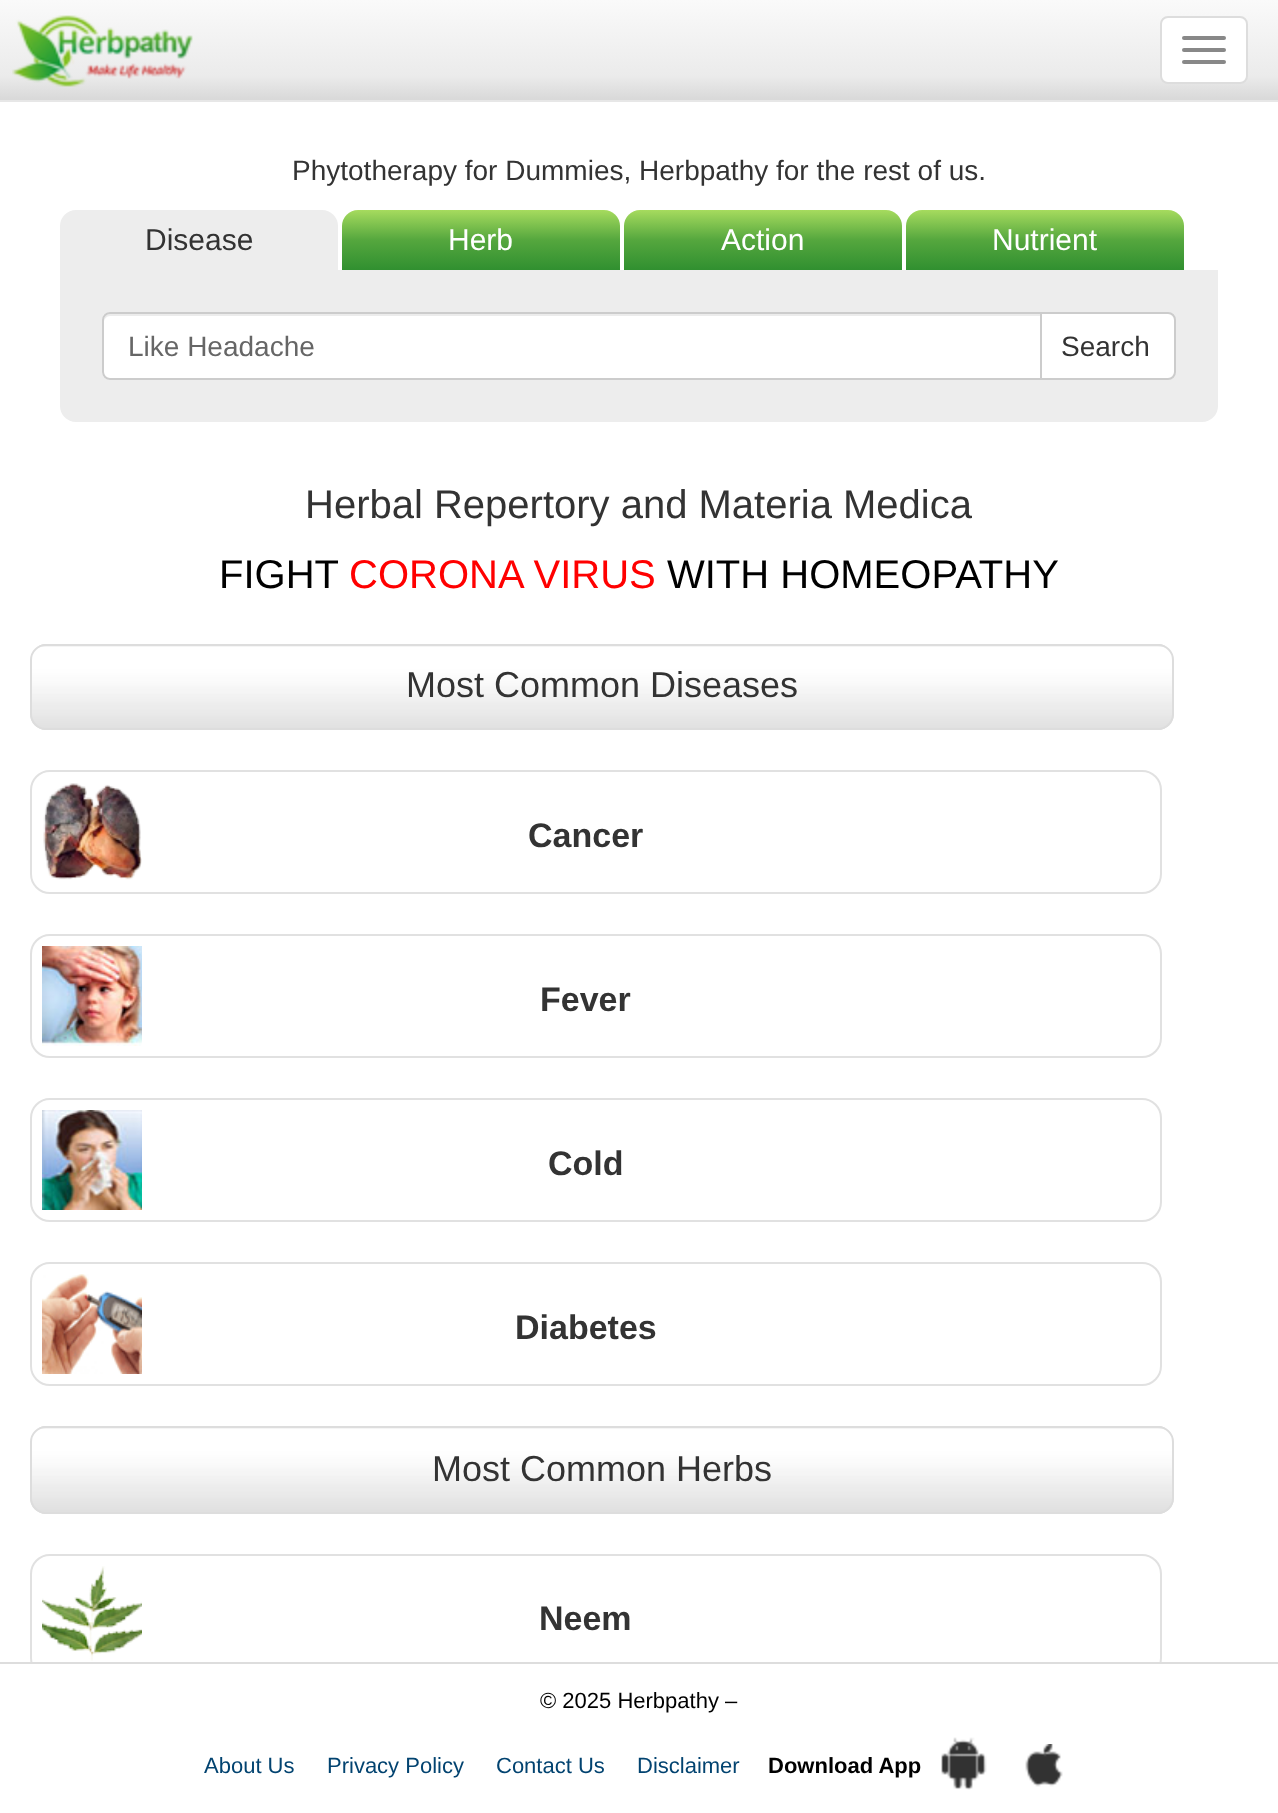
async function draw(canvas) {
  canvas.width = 1278
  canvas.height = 1813
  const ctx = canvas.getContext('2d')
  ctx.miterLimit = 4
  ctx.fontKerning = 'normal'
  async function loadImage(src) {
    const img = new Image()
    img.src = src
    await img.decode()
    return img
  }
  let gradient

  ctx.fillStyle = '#fff'
  ctx.fillRect(0, 0, 1278, 1813)
  gradient = ctx.createLinearGradient(639, 0, 639, 100)
  gradient.addColorStop(0, '#fafafa')
  gradient.addColorStop(0.76, '#ebebeb')
  gradient.addColorStop(0.99, '#d9d9d9')
  ctx.fillStyle = gradient
  ctx.fillRect(0, 0, 1278, 100)
  ctx.fillStyle = '#e7e7e7'
  ctx.fillRect(0, 100, 1278, 2)
  ctx.drawImage(await loadImage('image0.png'), 12, 15, 181, 72)
  ctx.fillStyle = '#fff'
  ctx.beginPath()
  ctx.roundRect(1161, 17, 86, 66, 7)
  ctx.fill()
  ctx.strokeStyle = '#ddd'
  ctx.lineWidth = 2
  ctx.stroke()
  ctx.fillStyle = '#888'
  ctx.beginPath()
  ctx.roundRect(1182, 36, 44, 4, 2)
  ctx.fill()
  ctx.beginPath()
  ctx.roundRect(1182, 48, 44, 4, 2)
  ctx.fill()
  ctx.beginPath()
  ctx.roundRect(1182, 60, 44, 4, 2)
  ctx.fill()
  ctx.font = '28px Liberation Sans'
  ctx.fillStyle = '#333'
  ctx.fillText('Phytotherapy for Dummies, Herbpathy for the rest of us.', 292, 180)
  ctx.fillStyle = '#ededed'
  ctx.beginPath()
  ctx.roundRect(60, 210, 278, 60, [16, 16, 0, 0])
  ctx.fill()
  ctx.font = '30px Liberation Sans'
  ctx.fillStyle = '#333'
  ctx.fillText('Disease', 145, 250)
  gradient = ctx.createLinearGradient(481, 210, 481, 270)
  gradient.addColorStop(0, '#a6db5e')
  gradient.addColorStop(0.5, '#55a73e')
  gradient.addColorStop(0.99, '#319030')
  ctx.fillStyle = gradient
  ctx.beginPath()
  ctx.roundRect(342, 210, 278, 60, [16, 16, 0, 0])
  ctx.fill()
  ctx.fillStyle = '#fff'
  ctx.fillText('Herb', 448, 250)
  gradient = ctx.createLinearGradient(763, 210, 763, 270)
  gradient.addColorStop(0, '#a6db5e')
  gradient.addColorStop(0.5, '#55a73e')
  gradient.addColorStop(0.99, '#319030')
  ctx.fillStyle = gradient
  ctx.beginPath()
  ctx.roundRect(624, 210, 278, 60, [16, 16, 0, 0])
  ctx.fill()
  ctx.fillStyle = '#fff'
  ctx.fillText('Action', 721, 250)
  gradient = ctx.createLinearGradient(1045, 210, 1045, 270)
  gradient.addColorStop(0, '#a6db5e')
  gradient.addColorStop(0.5, '#55a73e')
  gradient.addColorStop(0.99, '#319030')
  ctx.fillStyle = gradient
  ctx.beginPath()
  ctx.roundRect(906, 210, 278, 60, [16, 16, 0, 0])
  ctx.fill()
  ctx.fillStyle = '#fff'
  ctx.fillText('Nutrient', 992, 250)
  ctx.fillStyle = '#ededed'
  ctx.beginPath()
  ctx.roundRect(61, 271, 1156, 150, [0, 0, 15, 15])
  ctx.fill()
  ctx.strokeStyle = '#ededed'
  ctx.stroke()
  ctx.fillStyle = '#fff'
  ctx.beginPath()
  ctx.roundRect(1035, 313, 140, 66, 7)
  ctx.fill()
  ctx.strokeStyle = '#ccc'
  ctx.stroke()
  ctx.beginPath()
  ctx.roundRect(102, 312, 940, 68, [8, 0, 0, 8])
  ctx.fill()
  ctx.fillStyle = '#ececec'
  ctx.beginPath()
  ctx.moveTo(110, 316)
  ctx.lineTo(1040, 316)
  ctx.lineTo(1040, 314)
  ctx.lineTo(110, 314)
  ctx.bezierCurveTo(105, 314, 104, 318, 104, 322)
  ctx.bezierCurveTo(104, 319, 107, 316, 110, 316)
  ctx.closePath()
  ctx.fill()
  ctx.beginPath()
  ctx.roundRect(103, 313, 938, 66, [7, 0, 0, 7])
  ctx.stroke()
  ctx.font = '28px Liberation Sans'
  ctx.fillStyle = '#666'
  ctx.fillText('Like Headache', 128, 356)
  ctx.fillStyle = '#333'
  ctx.fillText('Search', 1061, 356)
  ctx.font = '40px Liberation Sans'
  ctx.fillText('Herbal Repertory and Materia Medica', 305, 518)
  ctx.fillStyle = '#000'
  ctx.fillText('FIGHT', 219, 588)
  ctx.fillStyle = '#f00'
  ctx.fillText('CORONA VIRUS', 349, 588)
  ctx.fillStyle = '#000'
  ctx.fillText('WITH HOMEOPATHY', 667, 588)
  ctx.drawImage(await loadImage('image1.png'), 30, 644, 1144, 86)
  ctx.beginPath()
  ctx.roundRect(31, 645, 1142, 84, 15)
  ctx.strokeStyle = '#ddd'
  ctx.stroke()
  ctx.font = '36px Liberation Sans'
  ctx.fillStyle = '#333'
  ctx.fillText('Most Common Diseases', 406, 697)
  ctx.beginPath()
  ctx.roundRect(31, 771, 1130, 122, 19)
  ctx.strokeStyle = '#e1e1e1'
  ctx.stroke()
  ctx.drawImage(await loadImage('image2.png'), 43, 783, 99, 97)
  ctx.font = 'bold 34px Liberation Sans'
  ctx.fillText('Cancer', 528, 847)
  ctx.beginPath()
  ctx.roundRect(31, 935, 1130, 122, 19)
  ctx.stroke()
  ctx.drawImage(await loadImage('image3.png'), 42, 946, 100, 100)
  ctx.fillText('Fever', 540, 1011)
  ctx.beginPath()
  ctx.roundRect(31, 1099, 1130, 122, 19)
  ctx.stroke()
  ctx.drawImage(await loadImage('image4.png'), 42, 1110, 100, 100)
  ctx.fillText('Cold', 548, 1175)
  ctx.beginPath()
  ctx.roundRect(31, 1263, 1130, 122, 19)
  ctx.stroke()
  ctx.drawImage(await loadImage('image5.png'), 42, 1274, 100, 100)
  ctx.fillText('Diabetes', 515, 1339)
  ctx.drawImage(await loadImage('image6.png'), 30, 1426, 1144, 88)
  ctx.beginPath()
  ctx.roundRect(31, 1427, 1142, 86, 15)
  ctx.strokeStyle = '#ddd'
  ctx.stroke()
  ctx.font = '36px Liberation Sans'
  ctx.fillText('Most Common Herbs', 432, 1481)
  ctx.beginPath()
  ctx.roundRect(31, 1555, 1130, 122, 19)
  ctx.strokeStyle = '#e1e1e1'
  ctx.stroke()
  ctx.drawImage(await loadImage('image7.png'), 42, 1566, 100, 95)
  ctx.font = 'bold 34px Liberation Sans'
  ctx.fillText('Neem', 539, 1630)
  ctx.fillStyle = '#fff'
  ctx.fillRect(31, 1664, 1130, 14)
  ctx.fillStyle = '#ddd'
  ctx.fillRect(0, 1662, 1278, 2)
  ctx.font = '22px Liberation Sans'
  ctx.fillStyle = '#000'
  ctx.fillText('© 2025 Herbpathy –', 540, 1708)
  ctx.fillStyle = '#024370'
  ctx.fillText('About Us', 204, 1773)
  ctx.fillText('Privacy Policy', 327, 1773)
  ctx.fillText('Contact Us', 496, 1773)
  ctx.fillText('Disclaimer', 637, 1773)
  ctx.font = 'bold 22px Liberation Sans'
  ctx.fillStyle = '#000'
  ctx.fillText('Download App', 768, 1773)
  ctx.drawImage(await loadImage('image8.png'), 941, 1737, 46, 53)
  ctx.drawImage(await loadImage('image9.png'), 1025, 1744, 38, 43)
}

draw(document.querySelector('canvas'))
